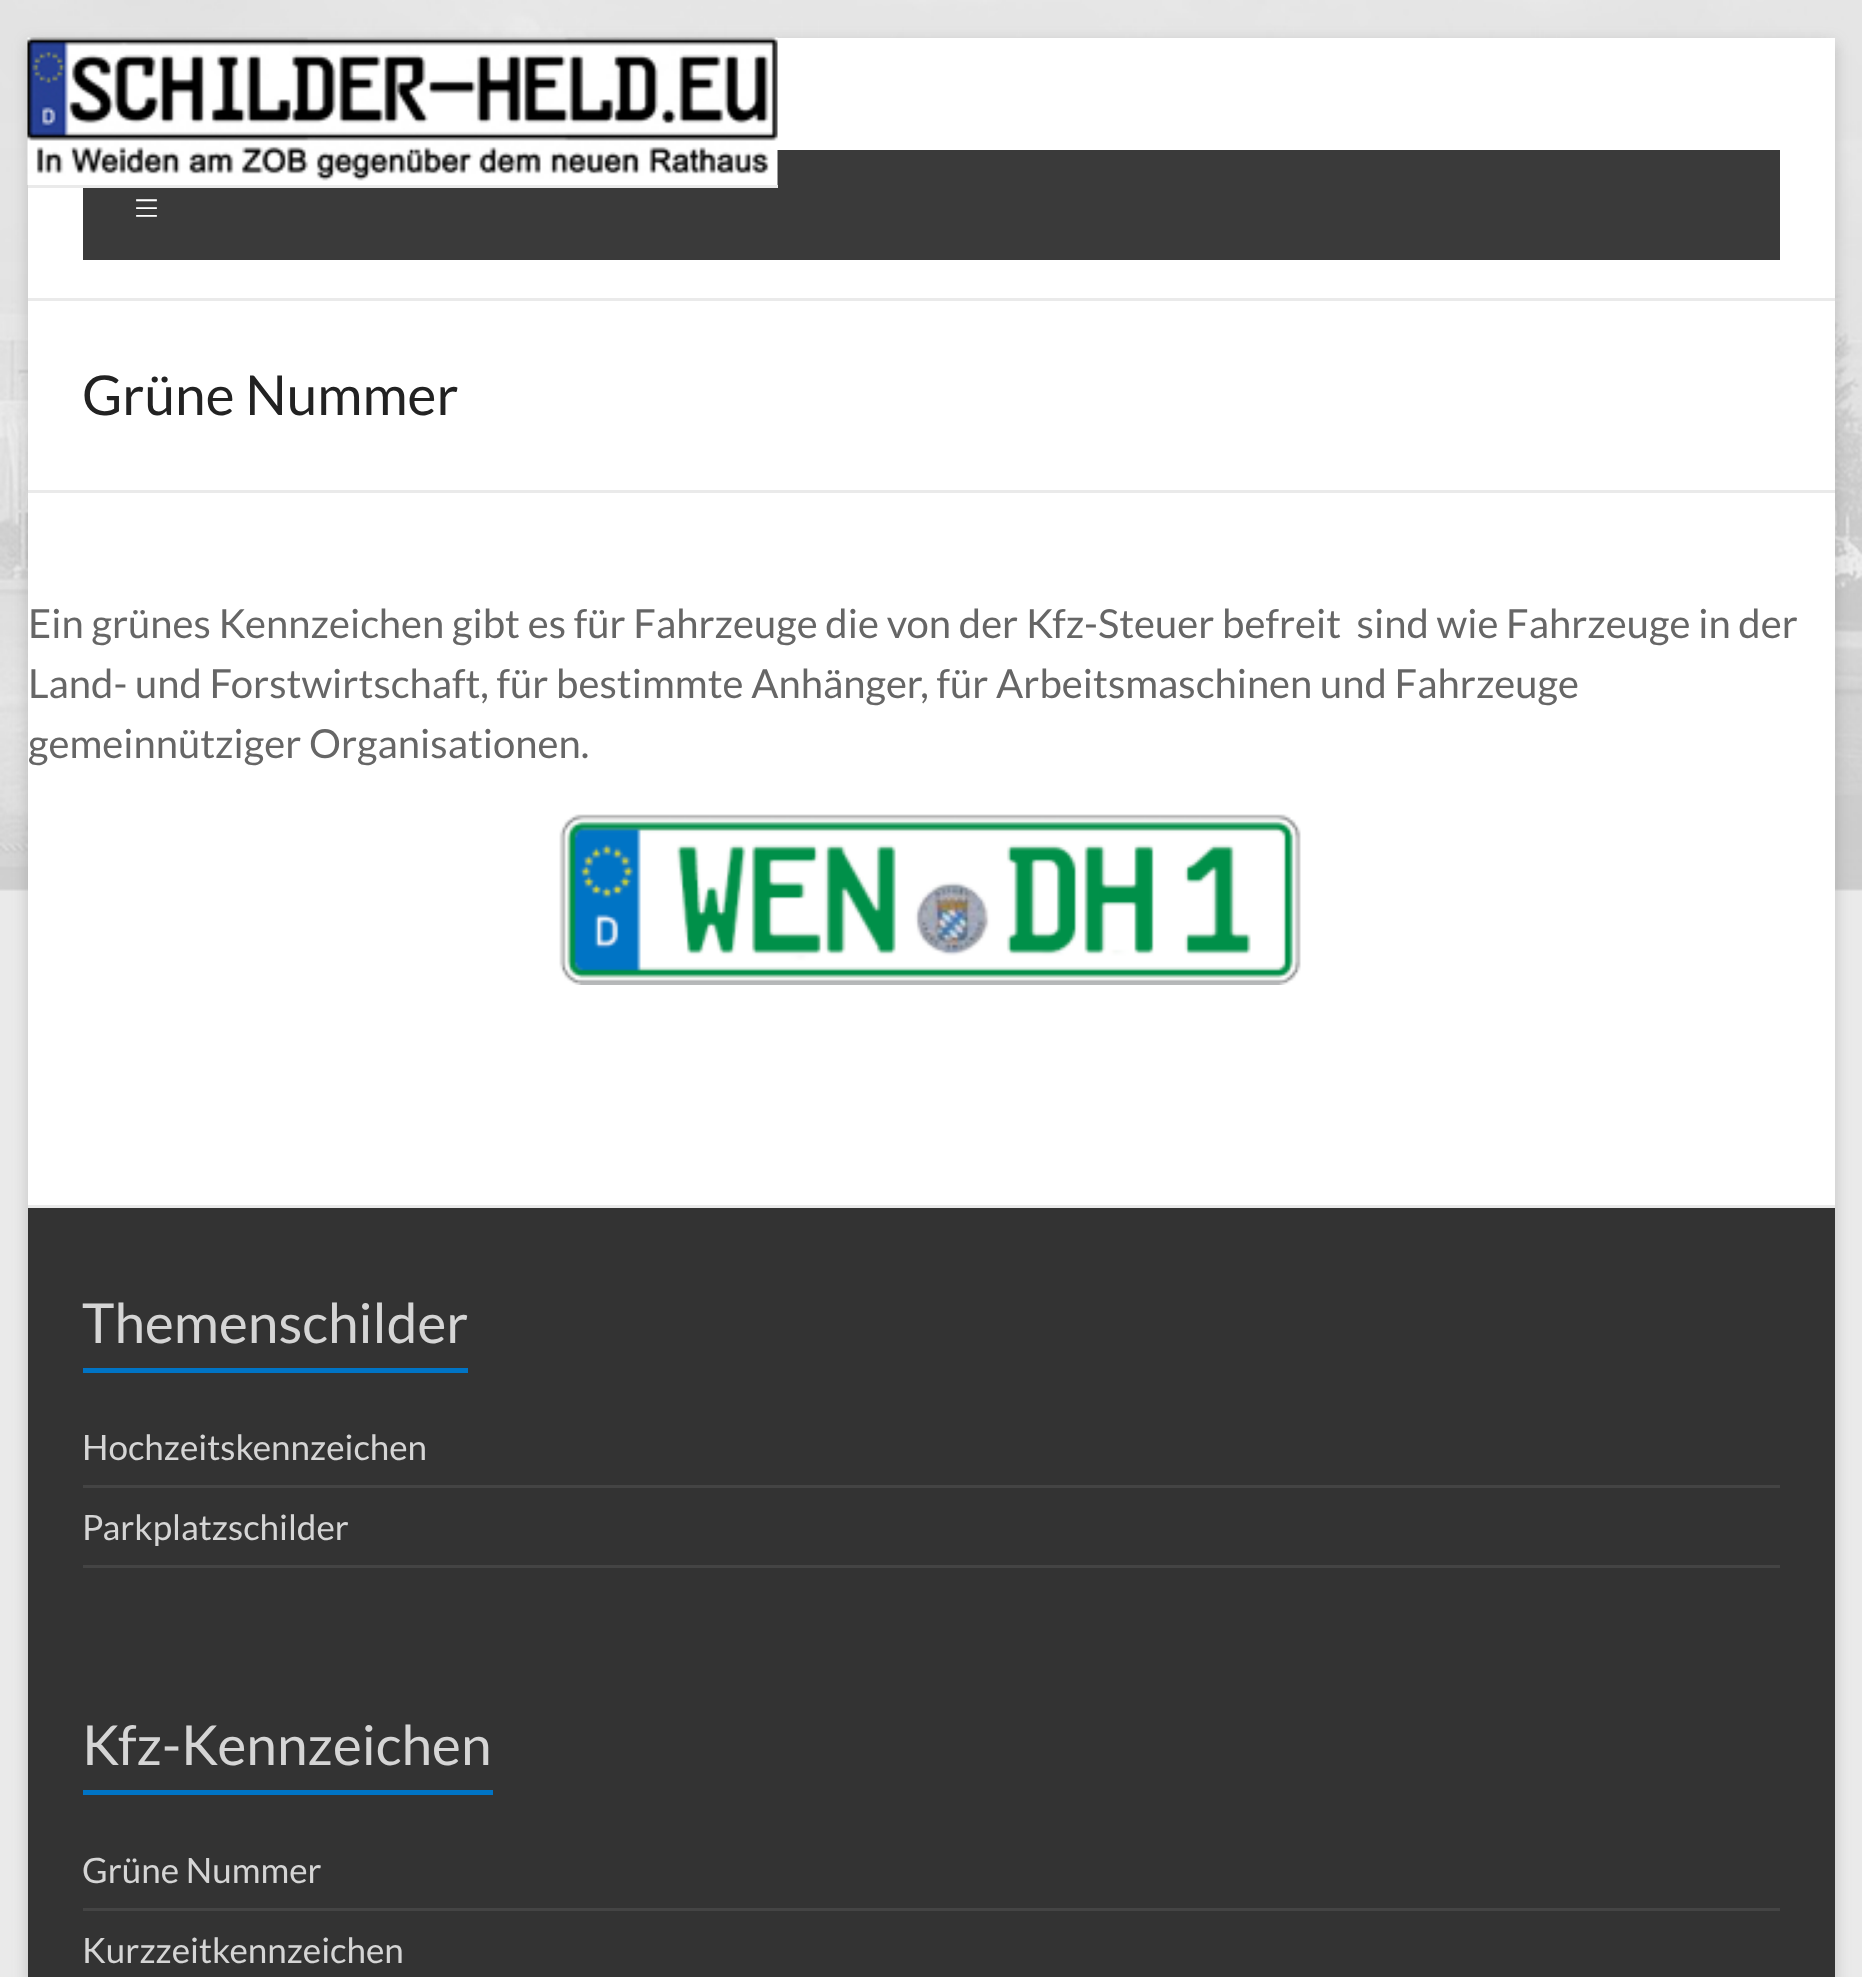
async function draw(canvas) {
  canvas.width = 1862
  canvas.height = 1977
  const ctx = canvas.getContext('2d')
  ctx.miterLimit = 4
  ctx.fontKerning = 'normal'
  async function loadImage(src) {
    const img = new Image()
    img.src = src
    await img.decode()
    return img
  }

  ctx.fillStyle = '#eaeaea'
  ctx.fillRect(0, 0, 1862, 1977)
  ctx.drawImage(await loadImage('image0.png'), 0, 0, 1862, 891)
  ctx.fillStyle = '#6464644d'
  ctx.filter = 'blur(7.5px)'
  ctx.beginPath()
  ctx.rect(28, 43, 1807, 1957)
  ctx.fill()
  ctx.filter = 'none'
  ctx.fillStyle = '#fff'
  ctx.fillRect(28, 38, 1807, 1167)
  ctx.fillStyle = '#3a3a3a'
  ctx.fillRect(83, 150, 1697, 110)
  ctx.drawImage(await loadImage('image1.png'), 27, 37, 751, 148)
  ctx.fillStyle = '#eaeaea'
  ctx.fillRect(28, 185, 750, 3)
  ctx.fillRect(28, 298, 1807, 3)
  ctx.font = '300 50px Lato'
  ctx.fillStyle = '#fff'
  ctx.fillText('≡', 132, 225)
  ctx.fillStyle = '#eaeaea'
  ctx.fillRect(28, 490, 1807, 3)
  ctx.font = '55px Lato'
  ctx.fillStyle = '#222'
  ctx.fillText('Grüne Nummer', 82, 415)
  ctx.font = '40px Lato'
  ctx.fillStyle = '#666'
  ctx.fillText('Ein grünes Kennzeichen gibt es für Fahrzeuge die von der Kfz-Steuer befreit  sind wie Fahrzeuge in der', 28, 638)
  ctx.fillText('Land- und Forstwirtschaft, für bestimmte Anhänger, für Arbeitsmaschinen und Fahrzeuge', 28, 698)
  ctx.fillText('gemeinnütziger Organisationen.', 28, 758)
  ctx.drawImage(await loadImage('image2.png'), 559, 814, 742, 171)
  ctx.fillStyle = '#333'
  ctx.fillRect(28, 1208, 1807, 769)
  ctx.fillStyle = '#eaeaea'
  ctx.fillRect(28, 1205, 1807, 3)
  ctx.font = '55px Lato'
  ctx.fillStyle = '#d5d5d5'
  ctx.fillText('Themenschilder', 82, 1343)
  ctx.fillStyle = '#0074c5'
  ctx.fillRect(83, 1368, 385, 5)
  ctx.fillStyle = '#444'
  ctx.fillRect(83, 1485, 1697, 3)
  ctx.font = '35px Lato'
  ctx.fillStyle = '#d5d5d5'
  ctx.fillText('Hochzeitskennzeichen', 82, 1460)
  ctx.fillStyle = '#444'
  ctx.fillRect(83, 1565, 1697, 3)
  ctx.fillStyle = '#d5d5d5'
  ctx.fillText('Parkplatzschilder', 82, 1540)
  ctx.font = '55px Lato'
  ctx.fillText('Kfz-Kennzeichen', 82, 1765)
  ctx.fillStyle = '#0074c5'
  ctx.fillRect(83, 1790, 410, 5)
  ctx.fillStyle = '#444'
  ctx.fillRect(83, 1908, 1697, 3)
  ctx.font = '35px Lato'
  ctx.fillStyle = '#d5d5d5'
  ctx.fillText('Grüne Nummer', 82, 1883)
  ctx.fillText('Kurzzeitkennzeichen', 82, 1963)
}

draw(document.querySelector('canvas'))
